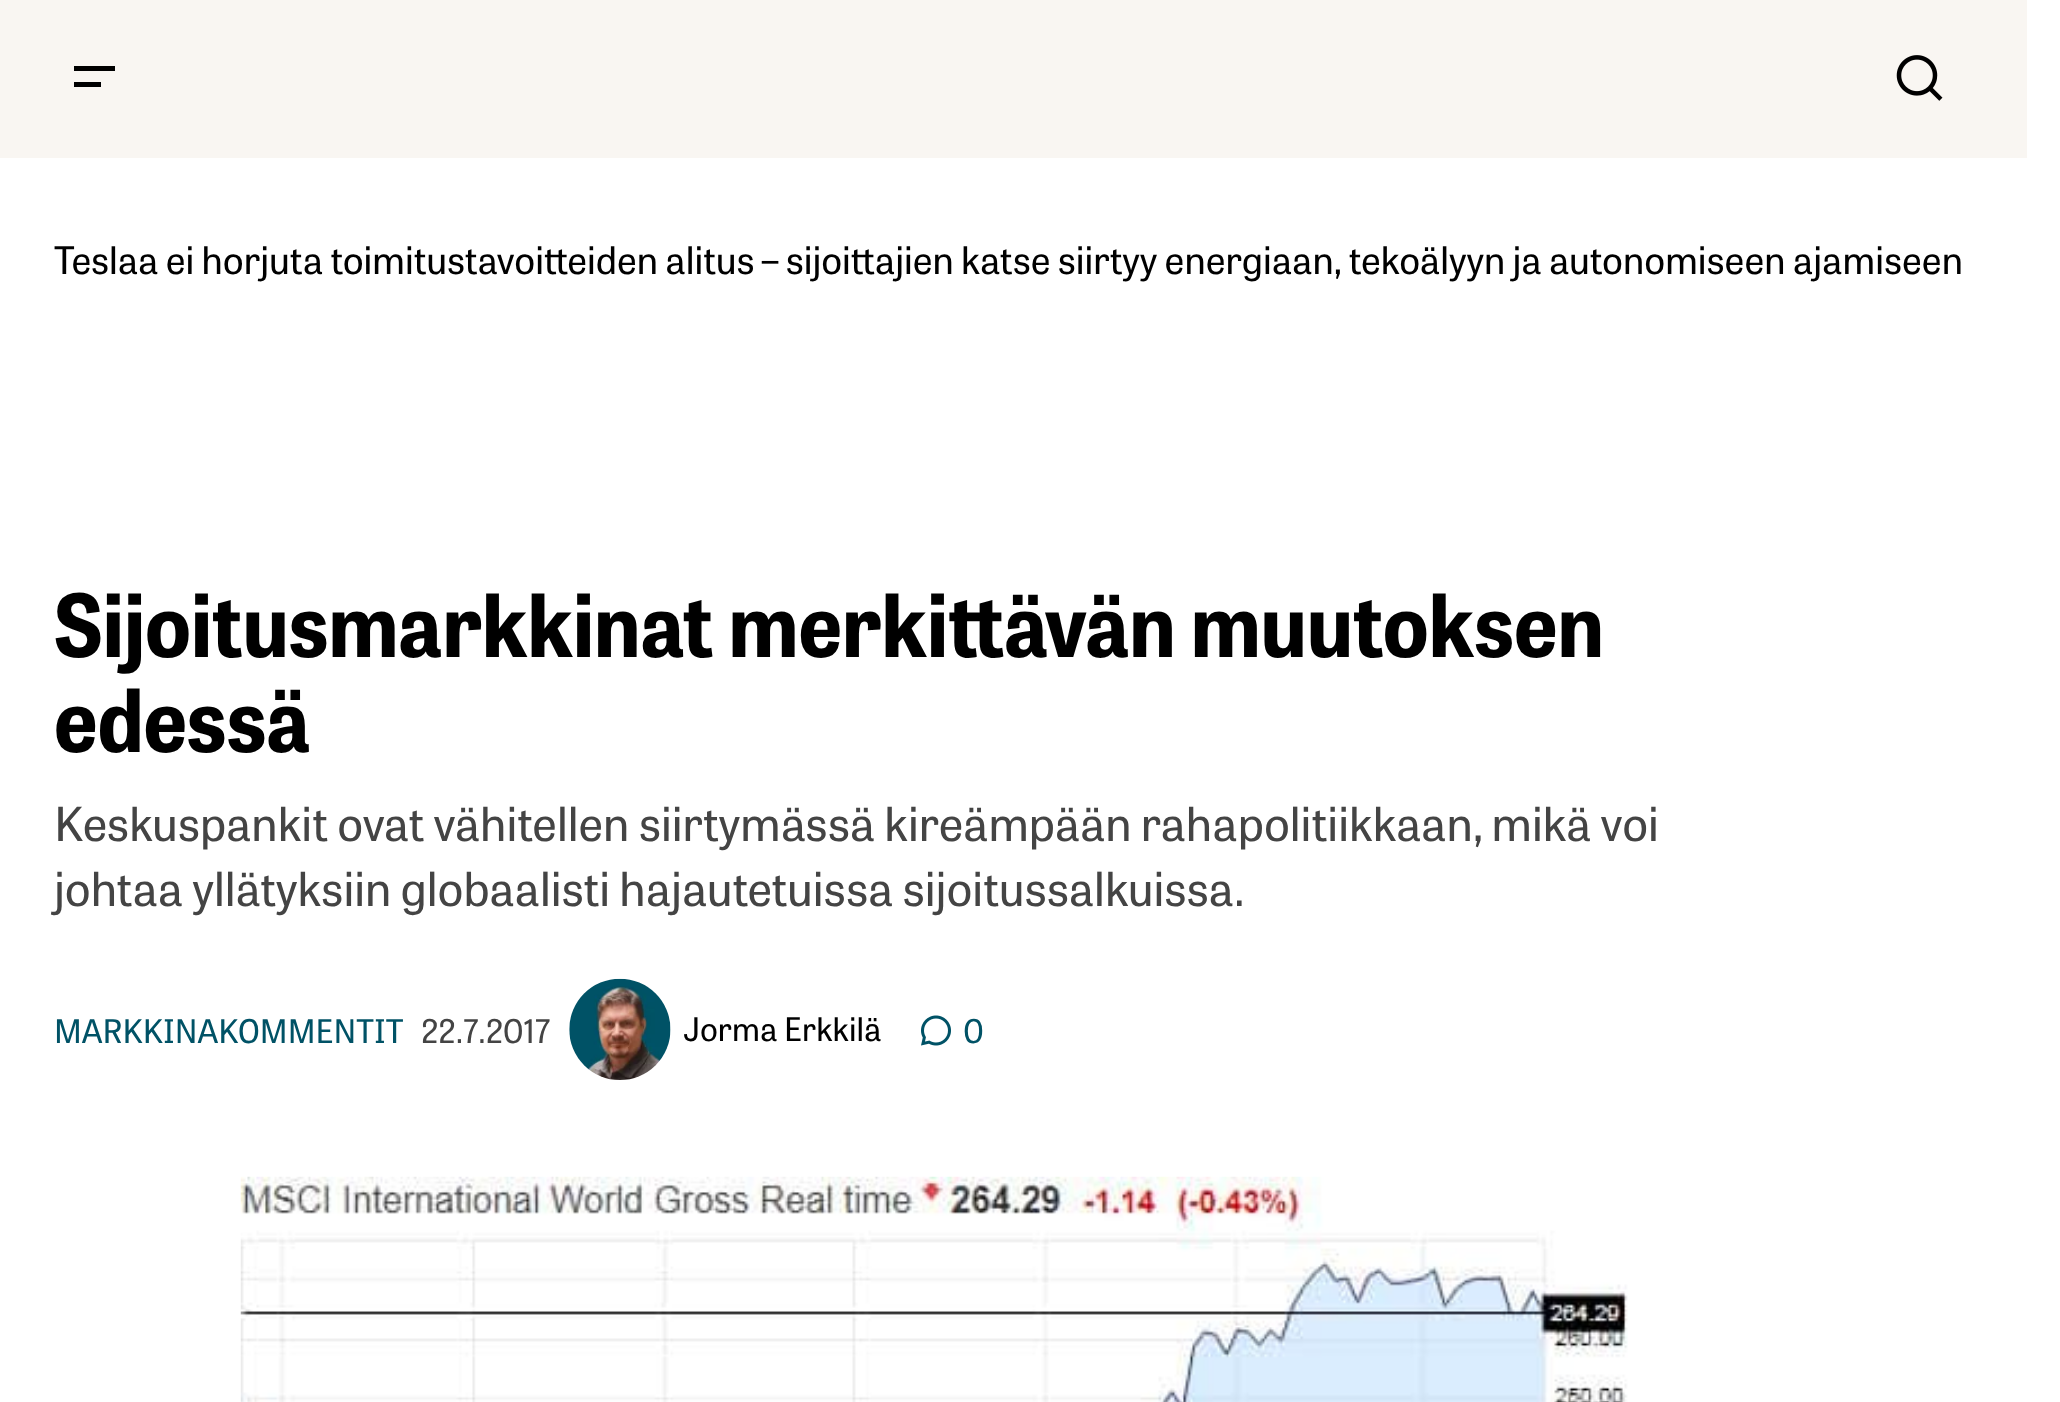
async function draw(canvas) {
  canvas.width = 2060
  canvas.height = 1402
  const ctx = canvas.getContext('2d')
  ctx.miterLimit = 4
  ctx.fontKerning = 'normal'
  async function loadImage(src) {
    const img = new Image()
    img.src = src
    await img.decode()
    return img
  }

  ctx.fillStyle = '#fff'
  ctx.fillRect(0, 0, 2060, 1402)
  ctx.fillStyle = '#f9f6f2'
  ctx.fillRect(0, 0, 2027, 158)
  ctx.fillStyle = '#000'
  ctx.beginPath()
  ctx.moveTo(74, 66)
  ctx.lineTo(115, 66)
  ctx.lineTo(115, 71)
  ctx.lineTo(74, 71)
  ctx.closePath()
  ctx.moveTo(74, 82)
  ctx.lineTo(101, 82)
  ctx.lineTo(101, 87)
  ctx.lineTo(74, 87)
  ctx.closePath()
  ctx.fill()
  ctx.drawImage(await loadImage('image0.png'), 1896, 55, 47, 46)
  ctx.wordSpacing = '-0.2px'
  ctx.font = '37.8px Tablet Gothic'
  ctx.fillText('Teslaa ei horjuta toimitustavoitteiden alitus – sijoittajien katse siirtyy energiaan, tekoälyyn ja autonomiseen ajamiseen', 54, 274)
  ctx.wordSpacing = '0px'
  ctx.font = 'bold 86.4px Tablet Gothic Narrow'
  ctx.fillText('Sijoitusmarkkinat merkittävän muutoksen', 54, 657)
  ctx.fillText('edessä', 54, 752)
  ctx.font = '46.8px Tablet Gothic'
  ctx.fillStyle = '#444'
  ctx.fillText('Keskuspankit ovat vähitellen siirtymässä kireämpään rahapolitiikkaan, mikä voi', 54, 841)
  ctx.fillText('johtaa yllätyksiin globaalisti hajautetuissa sijoitussalkuissa.', 54, 906)
  ctx.font = '32.4px Tablet Gothic'
  ctx.fillStyle = '#005266'
  ctx.fillText('MARKKINAKOMMENTIT', 54, 1043)
  ctx.fillStyle = '#444'
  ctx.fillText('22.7.2017', 421, 1043)
  ctx.drawImage(await loadImage('image1.png'), 569, 978, 102, 102)
  ctx.fillStyle = '#000'
  ctx.fillText('Jorma Erkkilä', 683, 1041)
  ctx.drawImage(await loadImage('image2.png'), 921, 1015, 30, 31)
  ctx.fillStyle = '#005266'
  ctx.fillText('0', 963, 1043)
  ctx.drawImage(await loadImage('image3.png'), 240, 1176, 1388, 226)
}

draw(document.querySelector('canvas'))
